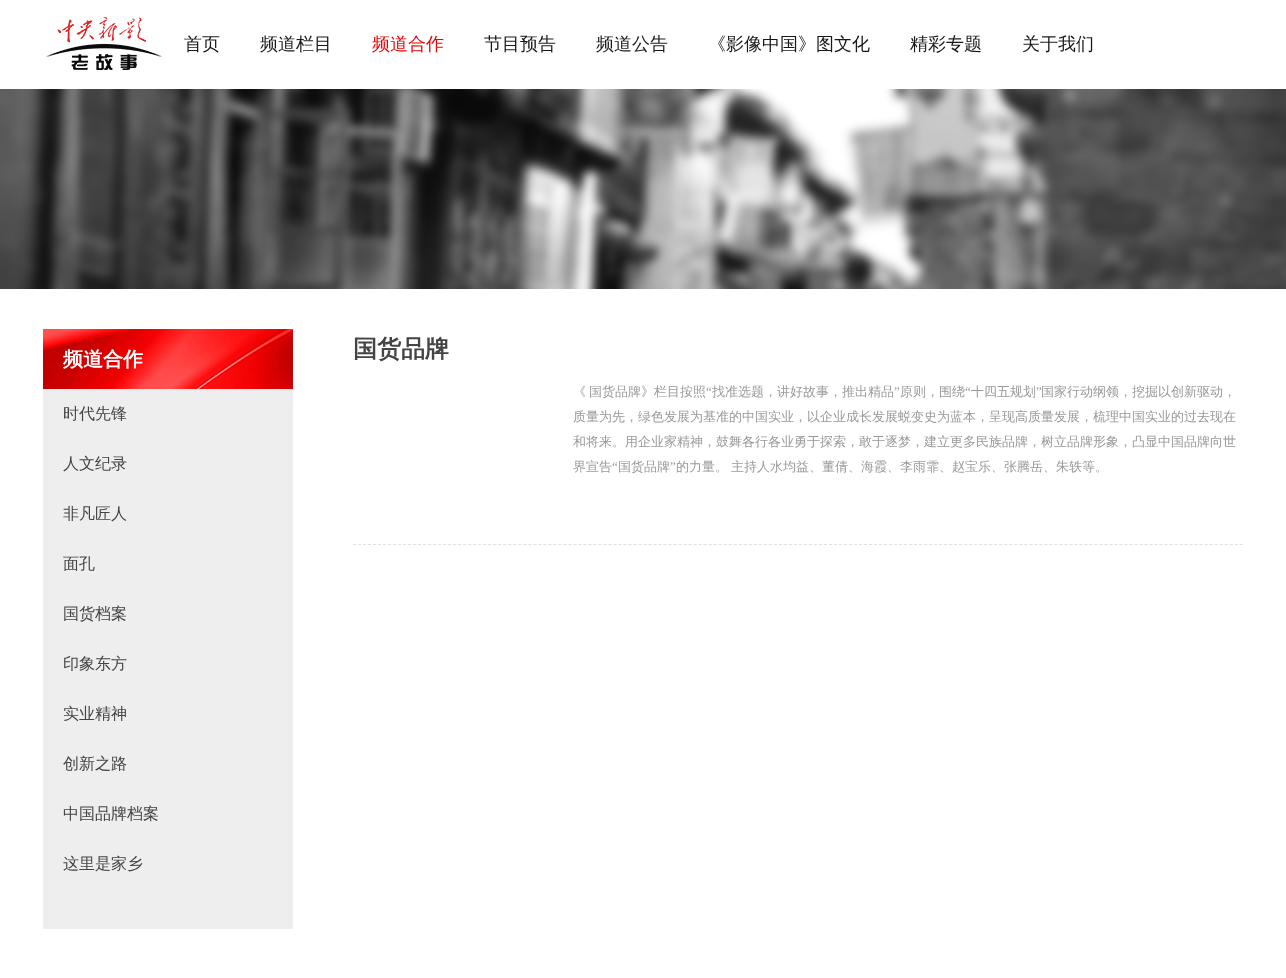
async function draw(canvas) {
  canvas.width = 1286
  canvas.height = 978
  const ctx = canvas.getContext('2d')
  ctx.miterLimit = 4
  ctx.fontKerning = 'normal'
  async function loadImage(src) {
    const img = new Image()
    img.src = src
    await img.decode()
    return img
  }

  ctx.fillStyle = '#fff'
  ctx.fillRect(0, 0, 1286, 978)
  ctx.drawImage(await loadImage('image0.png'), 46, 17, 116, 53)
  ctx.font = '500 18px WenQuanYi Zen Hei'
  ctx.fillStyle = '#181818'
  ctx.fillText('首页', 184, 50)
  ctx.fillText('频道栏目', 260, 50)
  ctx.fillStyle = '#f00000'
  ctx.fillText('频道合作', 372, 50)
  ctx.fillStyle = '#181818'
  ctx.fillText('节目预告', 484, 50)
  ctx.fillText('频道公告', 596, 50)
  ctx.fillText('《影像中国》图文化', 708, 50)
  ctx.fillText('精彩专题', 910, 50)
  ctx.fillText('关于我们', 1022, 50)
  ctx.drawImage(await loadImage('image1.png'), 0, 89, 1286, 200)
  ctx.fillStyle = '#eee'
  ctx.fillRect(43, 389, 250, 540)
  ctx.drawImage(await loadImage('image2.png'), 43, 329, 250, 60)
  ctx.font = 'bold 20px WenQuanYi Zen Hei'
  ctx.fillStyle = '#fff'
  ctx.fillText('频道合作', 63, 366)
  ctx.font = '500 16px WenQuanYi Zen Hei'
  ctx.fillStyle = '#444'
  ctx.fillText('时代先锋', 63, 419)
  ctx.fillText('人文纪录', 63, 469)
  ctx.fillText('非凡匠人', 63, 519)
  ctx.fillText('面孔', 63, 569)
  ctx.fillText('国货档案', 63, 619)
  ctx.fillText('印象东方', 63, 669)
  ctx.fillText('实业精神', 63, 719)
  ctx.fillText('创新之路', 63, 769)
  ctx.fillText('中国品牌档案', 63, 819)
  ctx.fillText('这里是家乡', 63, 869)
  ctx.beginPath()
  ctx.moveTo(353, 544.5)
  ctx.lineTo(1243, 544.5)
  ctx.strokeStyle = '#e0e0e0'
  ctx.setLineDash([3, 2.01])
  ctx.stroke()
  ctx.font = 'bold 24px WenQuanYi Zen Hei'
  ctx.fillText('国货品牌', 353, 357)
  ctx.wordSpacing = '-1px'
  ctx.font = '500 13px WenQuanYi Zen Hei'
  ctx.fillStyle = '#999'
  ctx.fillText('《 国货品牌》栏目按照', 573, 396)
  ctx.wordSpacing = '0px'
  ctx.font = '13px Liberation Serif'
  ctx.fillText('“', 706, 396)
  ctx.font = '500 13px WenQuanYi Zen Hei'
  ctx.fillText('找准选题，讲好故事，推出精品', 712, 396)
  ctx.font = '13px Liberation Serif'
  ctx.fillText('”', 894, 396)
  ctx.font = '500 13px WenQuanYi Zen Hei'
  ctx.fillText('原则，围绕', 900, 396)
  ctx.font = '13px Liberation Serif'
  ctx.fillText('“', 965, 396)
  ctx.font = '500 13px WenQuanYi Zen Hei'
  ctx.fillText('十四五规划', 971, 396)
  ctx.font = '13px Liberation Serif'
  ctx.fillText('”', 1036, 396)
  ctx.font = '500 13px WenQuanYi Zen Hei'
  ctx.fillText('国家行动纲领，挖掘以创新驱动，', 1041, 396)
  ctx.fillText('质量为先，绿色发展为基准的中国实业，以企业成长发展蜕变史为蓝本，呈现高质量发展，梳理中国实业的过去现在', 573, 421)
  ctx.fillText('和将来。用企业家精神，鼓舞各行各业勇于探索，敢于逐梦，建立更多民族品牌，树立品牌形象，凸显中国品牌向世', 573, 446)
  ctx.fillText('界宣告', 573, 471)
  ctx.font = '13px Liberation Serif'
  ctx.fillText('“', 612, 471)
  ctx.font = '500 13px WenQuanYi Zen Hei'
  ctx.fillText('国货品牌', 618, 471)
  ctx.font = '13px Liberation Serif'
  ctx.fillText('”', 670, 471)
  ctx.wordSpacing = '-1px'
  ctx.font = '500 13px WenQuanYi Zen Hei'
  ctx.fillText('的力量。 主持人水均益、董倩、海霞、李雨霏、赵宝乐、张腾岳、朱轶等。', 676, 471)
}

draw(document.querySelector('canvas'))
